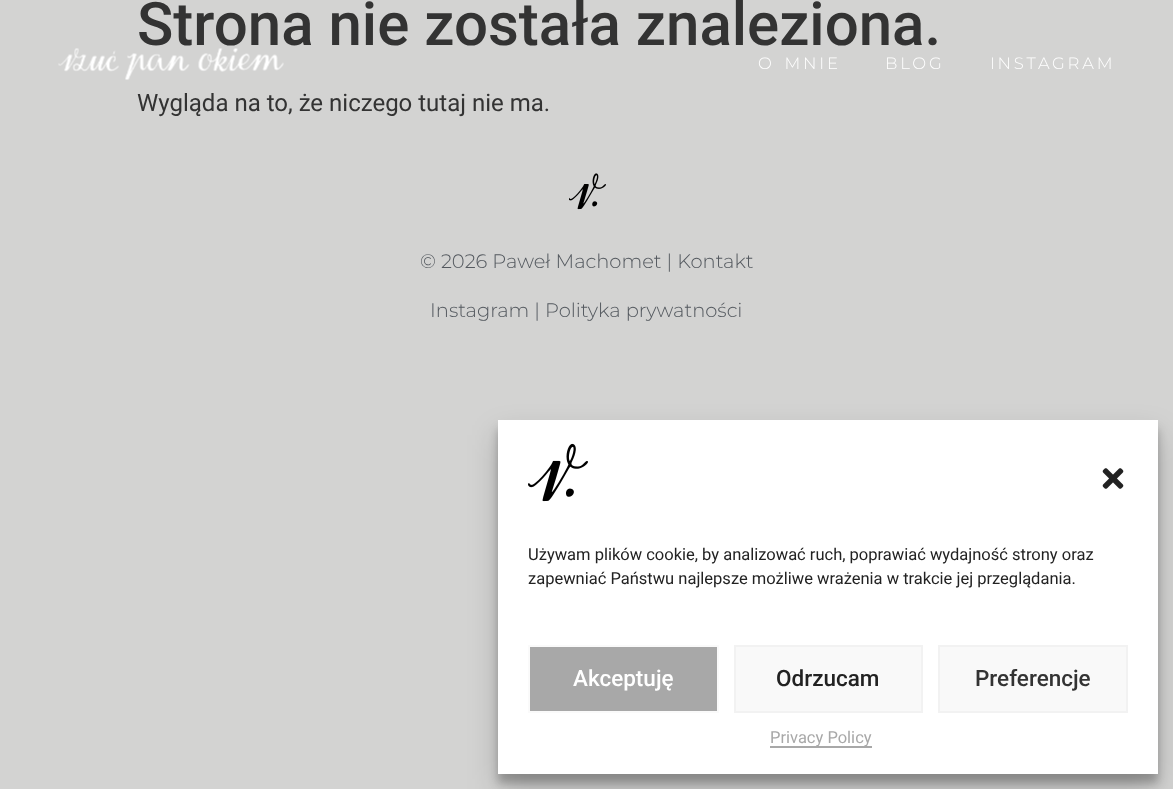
async function draw(canvas) {
  canvas.width = 1173
  canvas.height = 789
  const ctx = canvas.getContext('2d')
  ctx.miterLimit = 4
  ctx.fontKerning = 'normal'
  async function loadImage(src) {
    const img = new Image()
    img.src = src
    await img.decode()
    return img
  }

  ctx.fillStyle = '#d3d3d2'
  ctx.fillRect(0, 0, 1173, 789)
  ctx.font = '500 60px Roboto'
  ctx.fillStyle = '#333'
  ctx.fillText('Strona nie została znaleziona.', 137, 45)
  ctx.font = '24px Roboto'
  ctx.fillText('Wygląda na to, że niczego tutaj nie ma.', 137, 111)
  ctx.drawImage(await loadImage('image0.png'), 58, 48, 226, 32)
  ctx.letterSpacing = '2.75px'
  ctx.wordSpacing = '3px'
  ctx.font = '300 16.5px Montserrat'
  ctx.fillStyle = '#fff'
  ctx.fillText('O MNIE', 758, 69)
  ctx.wordSpacing = '0px'
  ctx.fillText('BLOG', 885, 69)
  ctx.fillText('INSTAGRAM', 990, 69)
  ctx.drawImage(await loadImage('image1.png'), 569, 173, 37, 37)
  ctx.letterSpacing = '0px'
  ctx.font = '300 19.5px Montserrat'
  ctx.fillStyle = '#54595f'
  ctx.fillText('© 2026 Paweł Machomet | Kontakt', 420, 268)
  ctx.fillText('Instagram | Polityka prywatności', 430, 317)
  ctx.fillStyle = '#0000003b'
  ctx.filter = 'blur(4.5px)'
  ctx.beginPath()
  ctx.rect(498, 429, 660, 354)
  ctx.fill()
  ctx.filter = 'none'
  ctx.fillStyle = '#00000030'
  ctx.filter = 'blur(15px)'
  ctx.beginPath()
  ctx.rect(498, 435, 660, 354)
  ctx.fill()
  ctx.filter = 'none'
  ctx.fillStyle = '#fff'
  ctx.fillRect(498, 420, 660, 354)
  ctx.drawImage(await loadImage('image2.png'), 528, 443, 60, 59)
  ctx.drawImage(await loadImage('image3.png'), 1102, 468, 22, 21)
  ctx.font = '16.5px Roboto'
  ctx.fillStyle = '#222'
  ctx.fillText('Używam plików cookie, by analizować ruch, poprawiać wydajność strony oraz', 528, 560)
  ctx.fillText('zapewniać Państwu najlepsze możliwe wrażenia w trakcie jej przeglądania.', 528, 584)
  ctx.fillStyle = '#a8a8a8'
  ctx.beginPath()
  ctx.rect(529, 646, 189, 66)
  ctx.fill()
  ctx.strokeStyle = '#fafafa'
  ctx.lineWidth = 2
  ctx.stroke()
  ctx.font = '500 22.5px Roboto'
  ctx.fillStyle = '#fff'
  ctx.fillText('Akceptuję', 573, 686)
  ctx.fillStyle = '#f9f9f9'
  ctx.beginPath()
  ctx.rect(735, 646, 187, 66)
  ctx.fill()
  ctx.strokeStyle = '#f2f2f2'
  ctx.stroke()
  ctx.fillStyle = '#222'
  ctx.fillText('Odrzucam', 776, 686)
  ctx.fillStyle = '#f9f9f9'
  ctx.beginPath()
  ctx.rect(939, 646, 188, 66)
  ctx.fill()
  ctx.stroke()
  ctx.fillStyle = '#333'
  ctx.fillText('Preferencje', 975, 686)
  ctx.fillStyle = '#a8a8a8'
  ctx.fillRect(770, 746, 102, 2)
  ctx.font = '16.5px Roboto'
  ctx.fillText('Privacy Policy', 770, 743)
}

draw(document.querySelector('canvas'))
